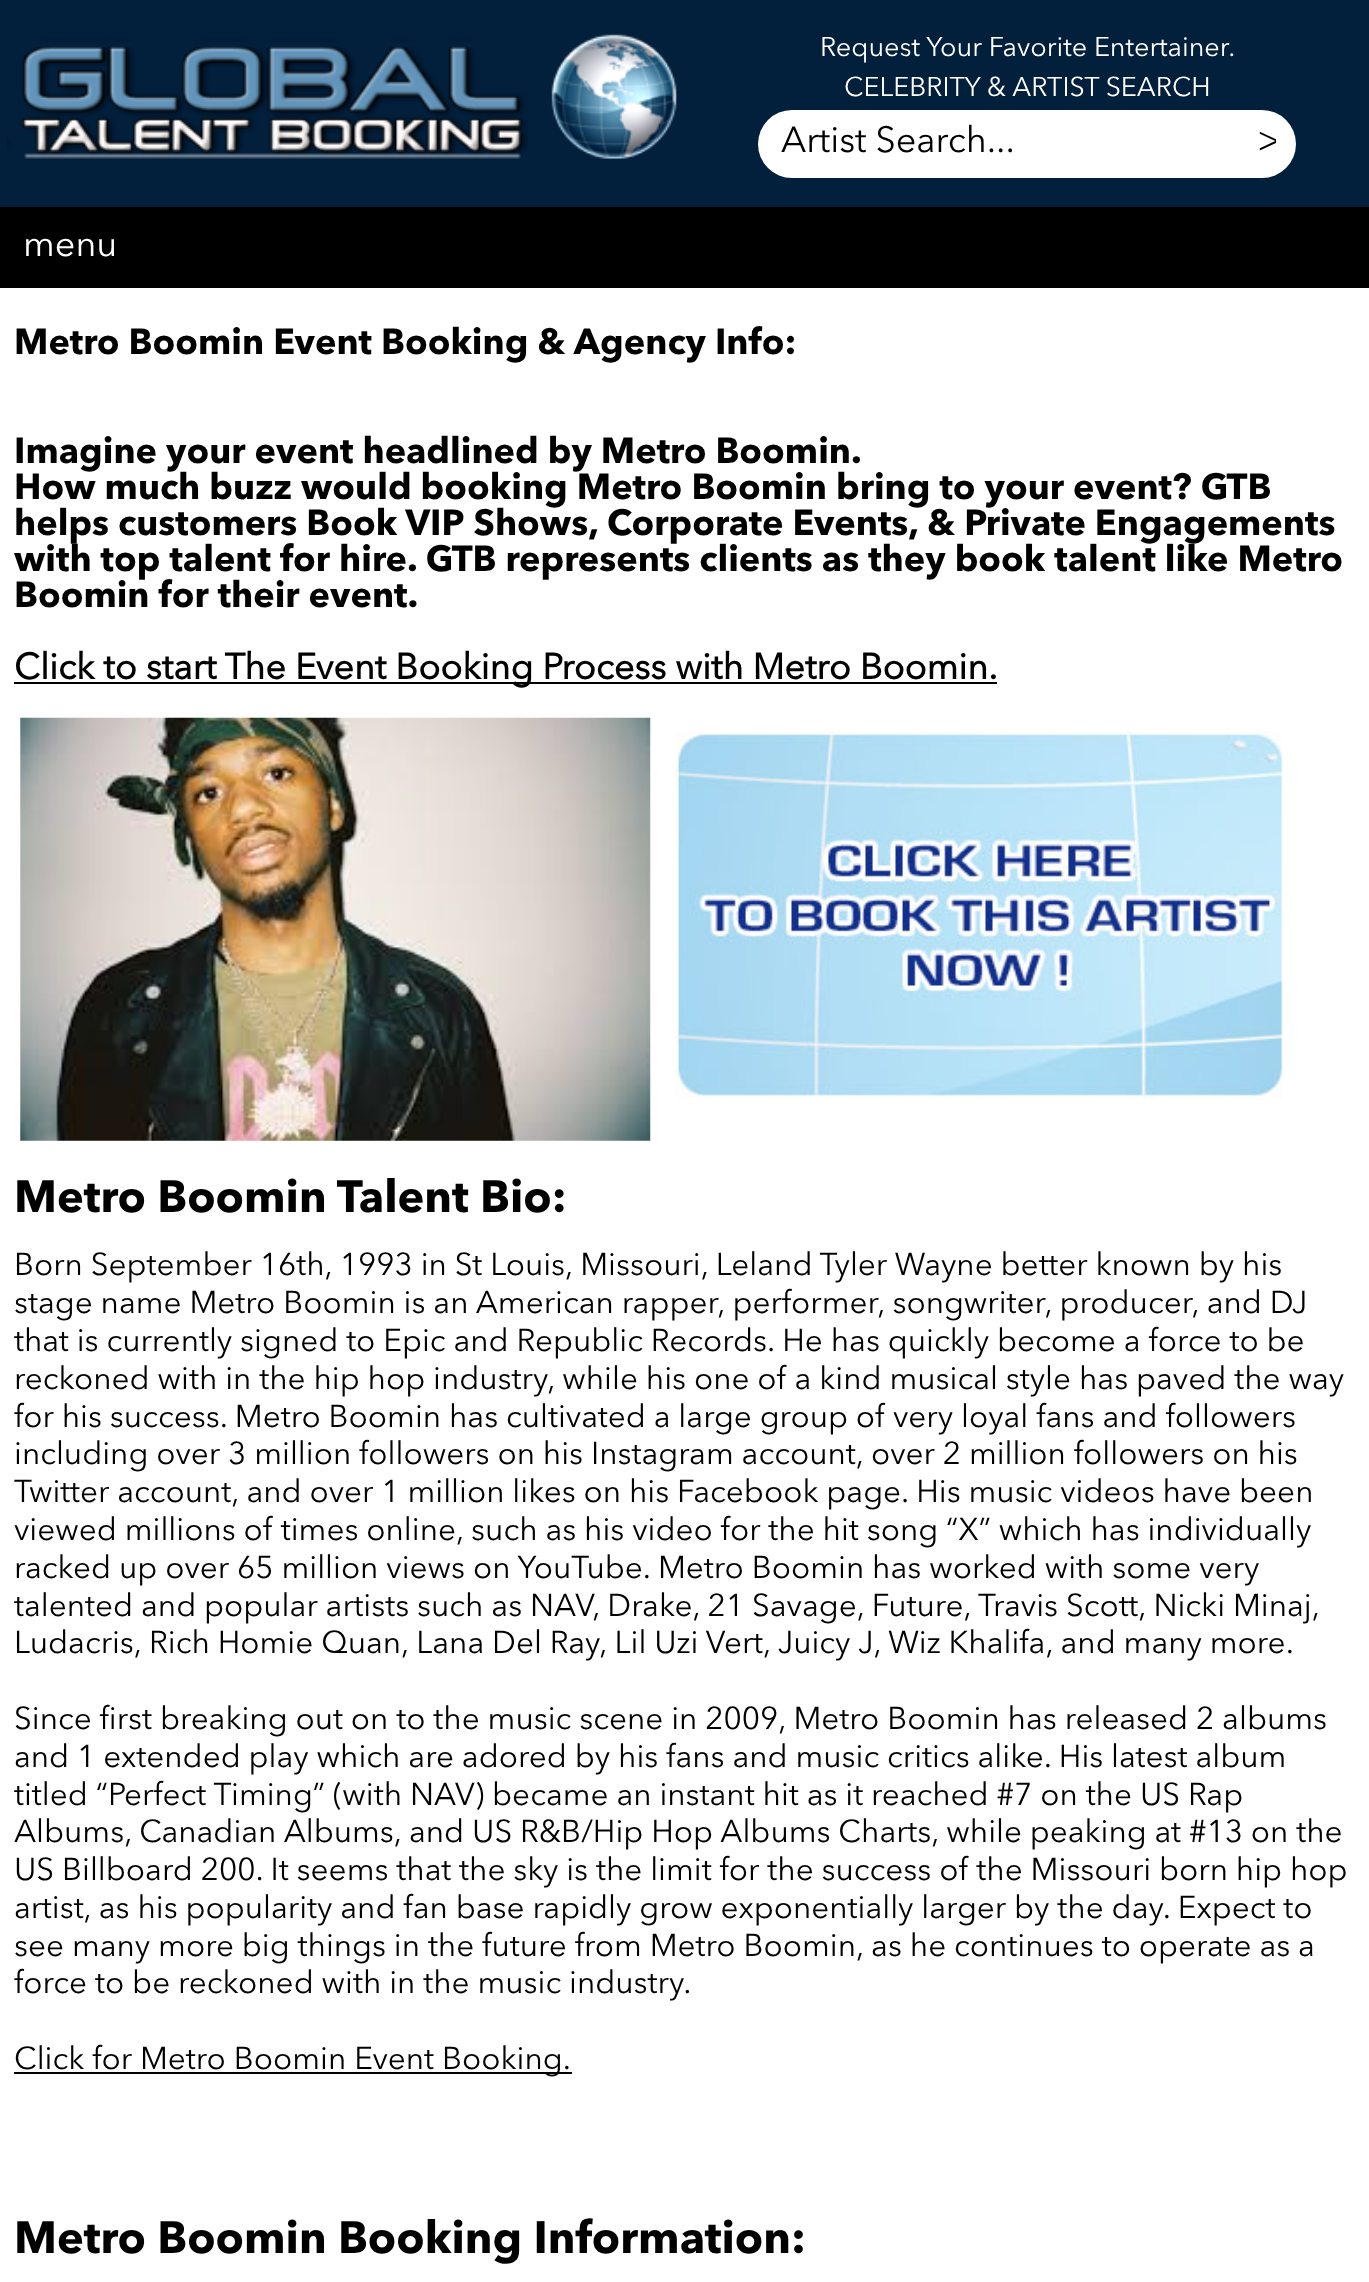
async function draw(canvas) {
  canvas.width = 1369
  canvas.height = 2282
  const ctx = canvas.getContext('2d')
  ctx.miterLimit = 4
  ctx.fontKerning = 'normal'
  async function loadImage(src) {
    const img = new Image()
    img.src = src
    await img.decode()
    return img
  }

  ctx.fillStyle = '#fff'
  ctx.fillRect(0, 0, 1369, 2282)
  ctx.fillStyle = '#021f3c'
  ctx.fillRect(0, 0, 1369, 207)
  ctx.drawImage(await loadImage('image0.png'), 7, 34, 670, 125)
  ctx.font = '27px Avenir Next'
  ctx.fillStyle = '#fff'
  ctx.fillText('Request Your Favorite Entertainer.', 820, 56)
  ctx.fillText('CELEBRITY & ARTIST SEARCH', 844, 96)
  ctx.beginPath()
  ctx.roundRect(758, 110, 538, 68, 34)
  ctx.fill()
  ctx.font = '36px Avenir Next'
  ctx.fillStyle = '#000'
  ctx.fillText('Artist Search...', 781, 152)
  ctx.save()
  ctx.beginPath()
  ctx.rect(1249, 117, 27, 54)
  ctx.clip()
  ctx.letterSpacing = '-12px'
  ctx.fillText('>', 1257, 152)
  ctx.restore()
  ctx.fillRect(0, 207, 1369, 81)
  ctx.fillStyle = '#fff'
  ctx.fillText('menu', 23, 256)
  ctx.font = 'bold 36px Avenir Next'
  ctx.fillStyle = '#000'
  ctx.fillText('Metro Boomin Event Booking & Agency Info:', 14, 354)
  ctx.fillText('Imagine your event headlined by Metro Boomin.', 14, 463)
  ctx.fillText('How much buzz would booking Metro Boomin bring to your event? GTB', 14, 499)
  ctx.fillText('helps customers Book VIP Shows, Corporate Events, & Private Engagements', 14, 535)
  ctx.fillText('with top talent for hire. GTB represents clients as they book talent like Metro', 14, 571)
  ctx.fillText('Boomin for their event.', 14, 607)
  ctx.fillRect(14, 682, 983, 2)
  ctx.font = 'bold 36px "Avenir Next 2"'
  ctx.fillText('Click to start The Event Booking Process with Metro Boomin.', 14, 679)
  ctx.drawImage(await loadImage('image1.png'), 20, 717, 631, 424)
  ctx.drawImage(await loadImage('image2.png'), 675, 731, 608, 368)
  ctx.font = 'bold 45px Avenir Next'
  ctx.fillText('Metro Boomin Talent Bio:', 14, 1212)
  ctx.font = '31.5px Avenir Next'
  ctx.fillText('Born September 16th, 1993 in St Louis, Missouri, Leland Tyler Wayne better known by his', 14, 1275)
  ctx.fillText('stage name Metro Boomin is an American rapper, performer, songwriter, producer, and DJ', 14, 1313)
  ctx.fillText('that is currently signed to Epic and Republic Records. He has quickly become a force to be', 14, 1351)
  ctx.fillText('reckoned with in the hip hop industry, while his one of a kind musical style has paved the way', 14, 1389)
  ctx.fillText('for his success. Metro Boomin has cultivated a large group of very loyal fans and followers', 14, 1427)
  ctx.fillText('including over 3 million followers on his Instagram account, over 2 million followers on his', 14, 1464)
  ctx.fillText('Twitter account, and over 1 million likes on his Facebook page. His music videos have been', 14, 1502)
  ctx.fillText('viewed millions of times online, such as his video for the hit song “X” which has individually', 14, 1540)
  ctx.fillText('racked up over 65 million views on YouTube. Metro Boomin has worked with some very', 14, 1578)
  ctx.fillText('talented and popular artists such as NAV, Drake, 21 Savage, Future, Travis Scott, Nicki Minaj,', 14, 1616)
  ctx.fillText('Ludacris, Rich Homie Quan, Lana Del Ray, Lil Uzi Vert, Juicy J, Wiz Khalifa, and many more.', 14, 1653)
  ctx.fillText('Since first breaking out on to the music scene in 2009, Metro Boomin has released 2 albums', 14, 1729)
  ctx.fillText('and 1 extended play which are adored by his fans and music critics alike. His latest album', 14, 1767)
  ctx.fillText('titled “Perfect Timing” (with NAV) became an instant hit as it reached #7 on the US Rap', 14, 1805)
  ctx.fillText('Albums, Canadian Albums, and US R&B/Hip Hop Albums Charts, while peaking at #13 on the', 14, 1842)
  ctx.fillText('US Billboard 200. It seems that the sky is the limit for the success of the Missouri born hip hop', 14, 1880)
  ctx.fillText('artist, as his popularity and fan base rapidly grow exponentially larger by the day. Expect to', 14, 1918)
  ctx.fillText('see many more big things in the future from Metro Boomin, as he continues to operate as a', 14, 1956)
  ctx.fillText('force to be reckoned with in the music industry.', 14, 1993)
  ctx.fillRect(14, 2072, 558, 2)
  ctx.fillText('Click for Metro Boomin Event Booking.', 14, 2069)
  ctx.font = 'bold 45px Avenir Next'
  ctx.fillText('Metro Boomin Booking Information:', 14, 2253)
}

draw(document.querySelector('canvas'))
